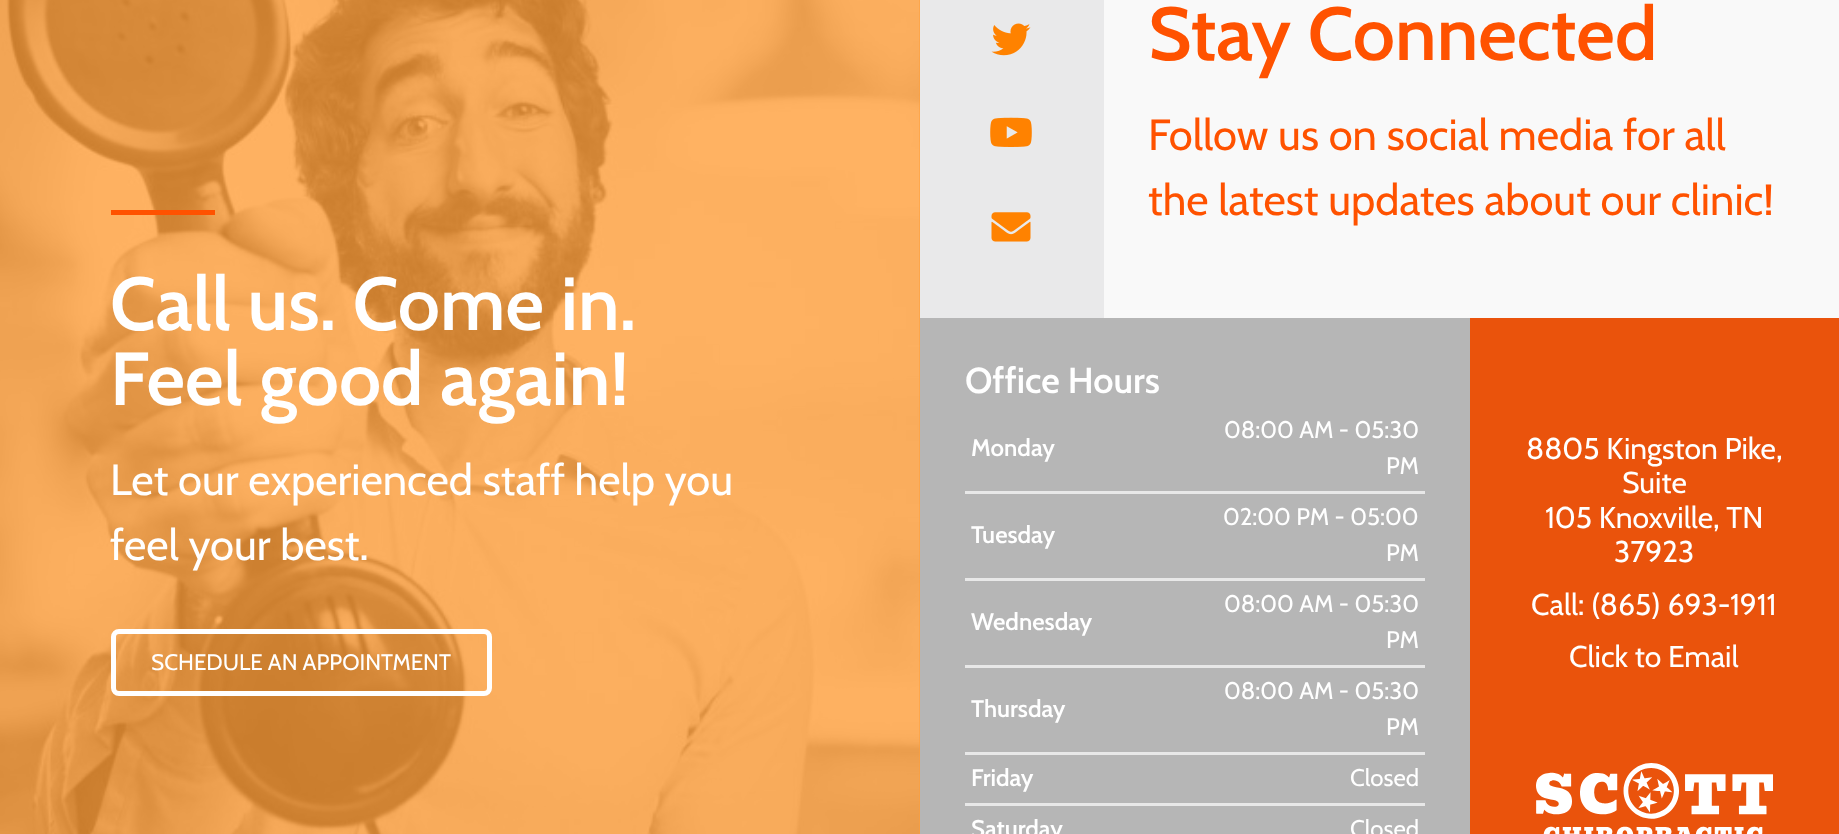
async function draw(canvas) {
  canvas.width = 1839
  canvas.height = 834
  const ctx = canvas.getContext('2d')
  ctx.miterLimit = 4
  ctx.fontKerning = 'normal'
  async function loadImage(src) {
    const img = new Image()
    img.src = src
    await img.decode()
    return img
  }

  ctx.fillStyle = '#ff9e38'
  ctx.fillRect(0, 0, 1839, 834)
  ctx.drawImage(await loadImage('image0.png'), 0, 0, 920, 834)
  ctx.fillStyle = '#ff5200'
  ctx.fillRect(111, 210, 104, 5)
  ctx.font = '600 75px Cabin'
  ctx.fillStyle = '#fff'
  ctx.fillText('Call us. Come in.', 110, 330)
  ctx.fillText('Feel good again!', 110, 405)
  ctx.font = '43.5px Cabin'
  ctx.fillText('Let our experienced staff help you', 110, 495)
  ctx.fillText('feel your best.', 110, 560)
  ctx.beginPath()
  ctx.roundRect(113.5, 631.5, 376, 62, 5.5)
  ctx.strokeStyle = '#fff'
  ctx.lineWidth = 5
  ctx.stroke()
  ctx.font = '22.5px Cabin'
  ctx.fillText('SCHEDULE AN APPOINTMENT', 151, 670)
  ctx.fillStyle = '#e9e9ea'
  ctx.fillRect(920, 0, 184, 318)
  ctx.drawImage(await loadImage('image1.png'), 991, 23, 40, 33)
  ctx.drawImage(await loadImage('image2.png'), 990, 117, 42, 30)
  ctx.drawImage(await loadImage('image3.png'), 991, 212, 40, 30)
  ctx.fillStyle = '#f9f9f9'
  ctx.fillRect(1104, 0, 735, 318)
  ctx.font = '600 75px Cabin'
  ctx.fillStyle = '#ff5200'
  ctx.fillText('Stay Connected', 1148, 60)
  ctx.font = '43.5px Cabin'
  ctx.fillText('Follow us on social media for all', 1148, 150)
  ctx.fillText('the latest updates about our clinic!', 1148, 215)
  ctx.fillStyle = '#b6b6b6'
  ctx.fillRect(920, 318, 550, 516)
  ctx.font = '600 36px Cabin'
  ctx.fillStyle = '#fff'
  ctx.fillText('Office Hours', 965, 393)
  ctx.font = '600 24px Cabin'
  ctx.fillText('Monday', 971, 456)
  ctx.font = '24px Cabin'
  ctx.fillText('08:00 AM - 05:30', 1224, 438)
  ctx.fillText('PM', 1386, 474)
  ctx.fillStyle = '#e8e8e8'
  ctx.fillRect(965, 491, 460, 3)
  ctx.font = '600 24px Cabin'
  ctx.fillStyle = '#fff'
  ctx.fillText('Tuesday', 971, 543)
  ctx.font = '24px Cabin'
  ctx.fillText('02:00 PM - 05:00', 1223, 525)
  ctx.fillText('PM', 1386, 561)
  ctx.fillStyle = '#e8e8e8'
  ctx.fillRect(965, 578, 460, 3)
  ctx.font = '600 24px Cabin'
  ctx.fillStyle = '#fff'
  ctx.fillText('Wednesday', 971, 630)
  ctx.font = '24px Cabin'
  ctx.fillText('08:00 AM - 05:30', 1224, 612)
  ctx.fillText('PM', 1386, 648)
  ctx.fillStyle = '#e8e8e8'
  ctx.fillRect(965, 665, 460, 3)
  ctx.font = '600 24px Cabin'
  ctx.fillStyle = '#fff'
  ctx.fillText('Thursday', 971, 717)
  ctx.font = '24px Cabin'
  ctx.fillText('08:00 AM - 05:30', 1224, 699)
  ctx.fillText('PM', 1386, 735)
  ctx.fillStyle = '#e8e8e8'
  ctx.fillRect(965, 752, 460, 3)
  ctx.font = '600 24px Cabin'
  ctx.fillStyle = '#fff'
  ctx.fillText('Friday', 971, 786)
  ctx.font = '24px Cabin'
  ctx.fillText('Closed', 1350, 786)
  ctx.fillStyle = '#e8e8e8'
  ctx.fillRect(965, 803, 460, 3)
  ctx.font = '600 24px Cabin'
  ctx.fillStyle = '#fff'
  ctx.fillText('Saturday', 971, 837)
  ctx.font = '24px Cabin'
  ctx.fillText('Closed', 1350, 837)
  ctx.fillStyle = '#ea530c'
  ctx.fillRect(1470, 318, 369, 516)
  ctx.font = '30px Cabin'
  ctx.fillStyle = '#fff'
  ctx.fillText('8805 Kingston Pike,', 1526, 459)
  ctx.fillText('Suite', 1622, 493)
  ctx.fillText('105 Knoxville, TN', 1545, 528)
  ctx.fillText('37923', 1614, 562)
  ctx.fillText('Call: (865) 693-1911', 1531, 615)
  ctx.fillText('Click to Email', 1569, 667)
  ctx.drawImage(await loadImage('image4.png'), 1536, 763, 237, 71)
}

draw(document.querySelector('canvas'))
